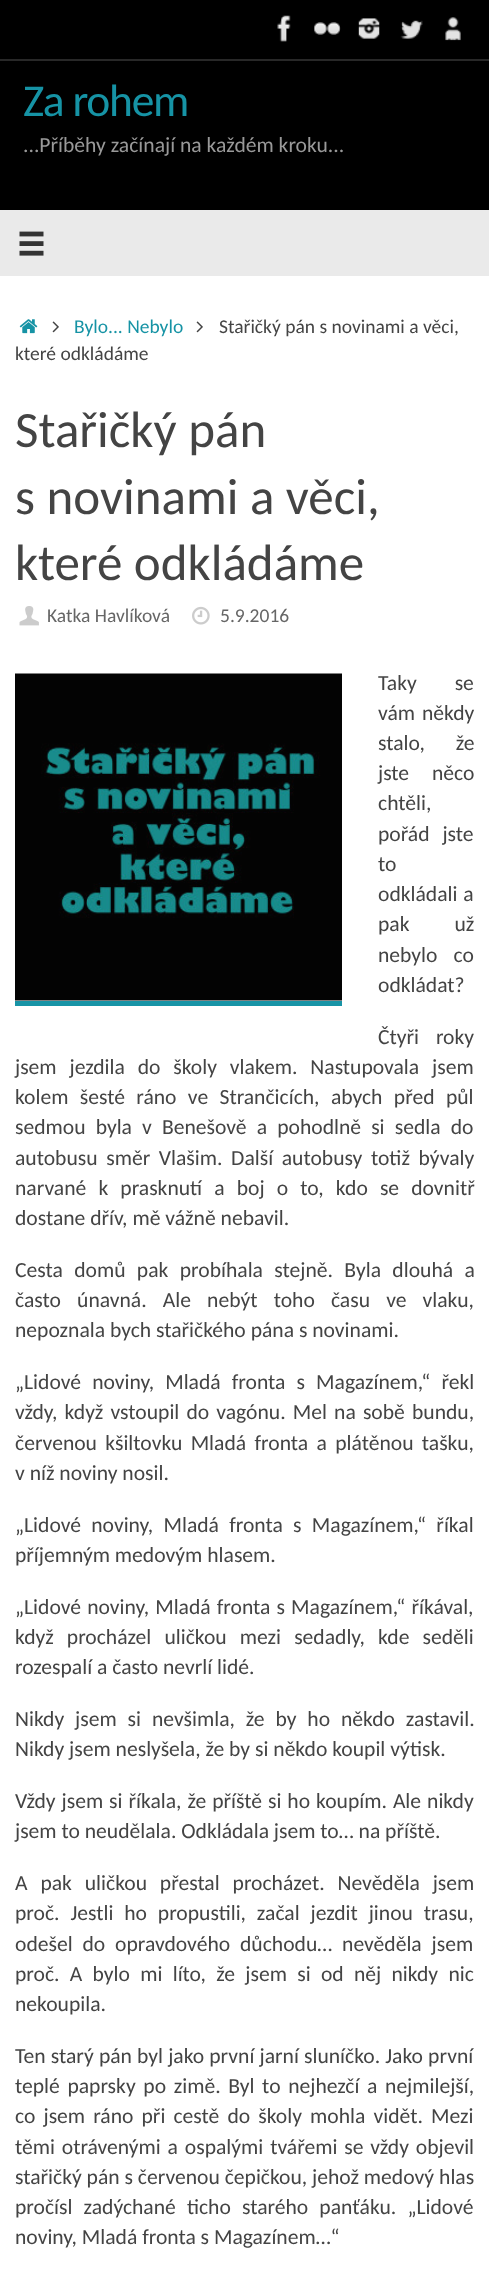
async function draw(canvas) {
  canvas.width = 489
  canvas.height = 2289
  const ctx = canvas.getContext('2d')
  ctx.miterLimit = 4
  ctx.fontKerning = 'normal'
  async function loadImage(src) {
    const img = new Image()
    img.src = src
    await img.decode()
    return img
  }

  ctx.fillStyle = '#000'
  ctx.fillRect(0, 0, 489, 2289)
  ctx.fillStyle = '#282828'
  ctx.fillRect(0, 59, 489, 2)
  ctx.drawImage(await loadImage('image0.png'), 277, 15, 14, 27)
  ctx.drawImage(await loadImage('image1.png'), 314, 22, 27, 13)
  ctx.drawImage(await loadImage('image2.png'), 358, 18, 22, 21)
  ctx.drawImage(await loadImage('image3.png'), 400, 20, 23, 19)
  ctx.drawImage(await loadImage('image4.png'), 445, 17, 16, 24)
  ctx.letterSpacing = '-1.25px'
  ctx.font = '45.5px Carlito'
  ctx.fillStyle = '#1693a5'
  ctx.fillText('Za rohem', 23, 116)
  ctx.letterSpacing = '0px'
  ctx.font = '21.6px Carlito'
  ctx.fillStyle = '#999'
  ctx.fillText('...Příběhy začínají na každém kroku...', 23, 152)
  ctx.fillStyle = '#eaeaea'
  ctx.fillRect(0, 210, 489, 66)
  ctx.drawImage(await loadImage('image5.png'), 19, 231, 25, 25)
  ctx.fillStyle = '#fff'
  ctx.fillRect(0, 276, 489, 2013)
  ctx.drawImage(await loadImage('image6.png'), 19, 319, 19, 15)
  ctx.drawImage(await loadImage('image7.png'), 52, 321, 7, 12)
  ctx.font = '19.5px Carlito'
  ctx.fillStyle = '#1693a5'
  ctx.fillText('Bylo... Nebylo', 74, 333)
  ctx.drawImage(await loadImage('image7.png'), 196, 321, 7, 12)
  ctx.fillStyle = '#444'
  ctx.fillText('Stařičký pán s novinami a věci,', 219, 333)
  ctx.fillText('které odkládáme', 15, 360)
  ctx.font = '51px Carlito'
  ctx.fillText('Stařičký pán', 15, 447)
  ctx.fillText('s novinami a věci,', 15, 514)
  ctx.fillText('které odkládáme', 15, 580)
  ctx.drawImage(await loadImage('image8.png'), 19, 606, 20, 20)
  ctx.font = '19.5px Carlito'
  ctx.fillStyle = '#666'
  ctx.fillText('Katka Havlíková', 47, 622)
  ctx.drawImage(await loadImage('image9.png'), 192, 606, 18, 19)
  ctx.fillText('5.9.2016', 220, 622)
  ctx.fillStyle = '#1894a6'
  ctx.fillRect(15, 1001, 327, 5)
  ctx.drawImage(await loadImage('image10.png'), 15, 673, 327, 328)
  ctx.wordSpacing = '33px'
  ctx.font = '21.6px Carlito'
  ctx.fillStyle = '#444'
  ctx.fillText('Taky se', 378, 690)
  ctx.wordSpacing = '2px'
  ctx.fillText('vám někdy', 378, 720)
  ctx.wordSpacing = '26px'
  ctx.fillText('stalo, že', 378, 750)
  ctx.wordSpacing = '18px'
  ctx.fillText('jste něco', 378, 780)
  ctx.wordSpacing = '0px'
  ctx.fillText('chtěli,', 378, 810)
  ctx.wordSpacing = '8px'
  ctx.fillText('pořád jste', 378, 841)
  ctx.wordSpacing = '0px'
  ctx.fillText('to', 378, 871)
  ctx.wordSpacing = '1px'
  ctx.fillText('odkládali a', 378, 901)
  ctx.wordSpacing = '40px'
  ctx.fillText('pak už', 378, 931)
  ctx.wordSpacing = '11.25px'
  ctx.fillText('nebylo co', 378, 962)
  ctx.wordSpacing = '0px'
  ctx.fillText('odkládat?', 378, 992)
  ctx.wordSpacing = '12px'
  ctx.fillText('Čtyři roky', 378, 1044)
  ctx.wordSpacing = '8px'
  ctx.fillText('jsem jezdila do školy vlakem. Nastupovala jsem', 15, 1074)
  ctx.wordSpacing = '6.5px'
  ctx.fillText('kolem šesté ráno ve Strančicích, abych před půl', 15, 1104)
  ctx.wordSpacing = '5.25px'
  ctx.fillText('sedmou byla v Benešově a pohodlně si sedla do', 15, 1134)
  ctx.wordSpacing = '3.75px'
  ctx.fillText('autobusu směr Vlašim. Další autobusy totiž bývaly', 15, 1165)
  ctx.wordSpacing = '7.25px'
  ctx.fillText('narvané k prasknutí a boj o to, kdo se dovnitř', 15, 1195)
  ctx.wordSpacing = '0px'
  ctx.fillText('dostane dřív, mě vážně nebavil.', 15, 1225)
  ctx.wordSpacing = '6.5px'
  ctx.fillText('Cesta domů pak probíhala stejně. Byla dlouhá a', 15, 1277)
  ctx.wordSpacing = '11.25px'
  ctx.fillText('často únavná. Ale nebýt toho času ve vlaku,', 15, 1307)
  ctx.wordSpacing = '0px'
  ctx.fillText('nepoznala bych stařičkého pána s novinami.', 15, 1337)
  ctx.wordSpacing = '6.25px'
  ctx.fillText('„Lidové noviny, Mladá fronta s Magazínem,“ řekl', 15, 1389)
  ctx.wordSpacing = '2.25px'
  ctx.fillText('vždy, když vstoupil do vagónu. Mel na sobě bundu,', 15, 1419)
  ctx.wordSpacing = '3.5px'
  ctx.fillText('červenou kšiltovku Mladá fronta a plátěnou tašku,', 15, 1450)
  ctx.wordSpacing = '0px'
  ctx.fillText('v níž noviny nosil.', 15, 1480)
  ctx.wordSpacing = '5.4px'
  ctx.fillText('„Lidové noviny, Mladá fronta s Magazínem,“ říkal', 15, 1532)
  ctx.wordSpacing = '0px'
  ctx.fillText('příjemným medovým hlasem.', 15, 1562)
  ctx.wordSpacing = '1.25px'
  ctx.fillText('„Lidové noviny, Mladá fronta s Magazínem,“ říkával,', 15, 1614)
  ctx.wordSpacing = '8.25px'
  ctx.fillText('když procházel uličkou mezi sedadly, kde seděli', 15, 1644)
  ctx.wordSpacing = '0px'
  ctx.fillText('rozespalí a často nevrlí lidé.', 15, 1674)
  ctx.wordSpacing = '6px'
  ctx.fillText('Nikdy jsem si nevšimla, že by ho někdo zastavil.', 15, 1726)
  ctx.wordSpacing = '0px'
  ctx.fillText('Nikdy jsem neslyšela, že by si někdo koupil výtisk.', 15, 1756)
  ctx.wordSpacing = '1.1px'
  ctx.fillText('Vždy jsem si říkala, že příště si ho koupím. Ale nikdy', 15, 1808)
  ctx.wordSpacing = '0px'
  ctx.fillText('jsem to neudělala. Odkládala jsem to… na příště.', 15, 1838)
  ctx.wordSpacing = '8px'
  ctx.fillText('A pak uličkou přestal procházet. Nevěděla jsem', 15, 1890)
  ctx.wordSpacing = '6px'
  ctx.fillText('proč. Jestli ho propustili, začal jezdit jinou trasu,', 15, 1920)
  ctx.wordSpacing = '5px'
  ctx.fillText('odešel do opravdového důchodu… nevěděla jsem', 15, 1951)
  ctx.wordSpacing = '5.4px'
  ctx.fillText('proč. A bylo mi líto, že jsem si od něj nikdy nic', 15, 1981)
  ctx.wordSpacing = '0px'
  ctx.fillText('nekoupila.', 15, 2011)
  ctx.wordSpacing = '0.25px'
  ctx.fillText('Ten starý pán byl jako první jarní sluníčko. Jako první', 15, 2063)
  ctx.wordSpacing = '2.75px'
  ctx.fillText('teplé paprsky po zimě. Byl to nejhezčí a nejmilejší,', 15, 2093)
  ctx.wordSpacing = '3.25px'
  ctx.fillText('co jsem ráno při cestě do školy mohla vidět. Mezi', 15, 2123)
  ctx.wordSpacing = '2px'
  ctx.fillText('těmi otrávenými a ospalými tvářemi se vždy objevil', 15, 2154)
  ctx.wordSpacing = '0px'
  ctx.fillText('stařičký pán s červenou čepičkou, jehož medový hlas', 15, 2184)
  ctx.wordSpacing = '6.25px'
  ctx.fillText('pročísl zadýchané ticho starého panťáku. „Lidové', 15, 2214)
  ctx.wordSpacing = '0px'
  ctx.fillText('noviny, Mladá fronta s Magazínem…“', 15, 2244)
}

draw(document.querySelector('canvas'))
